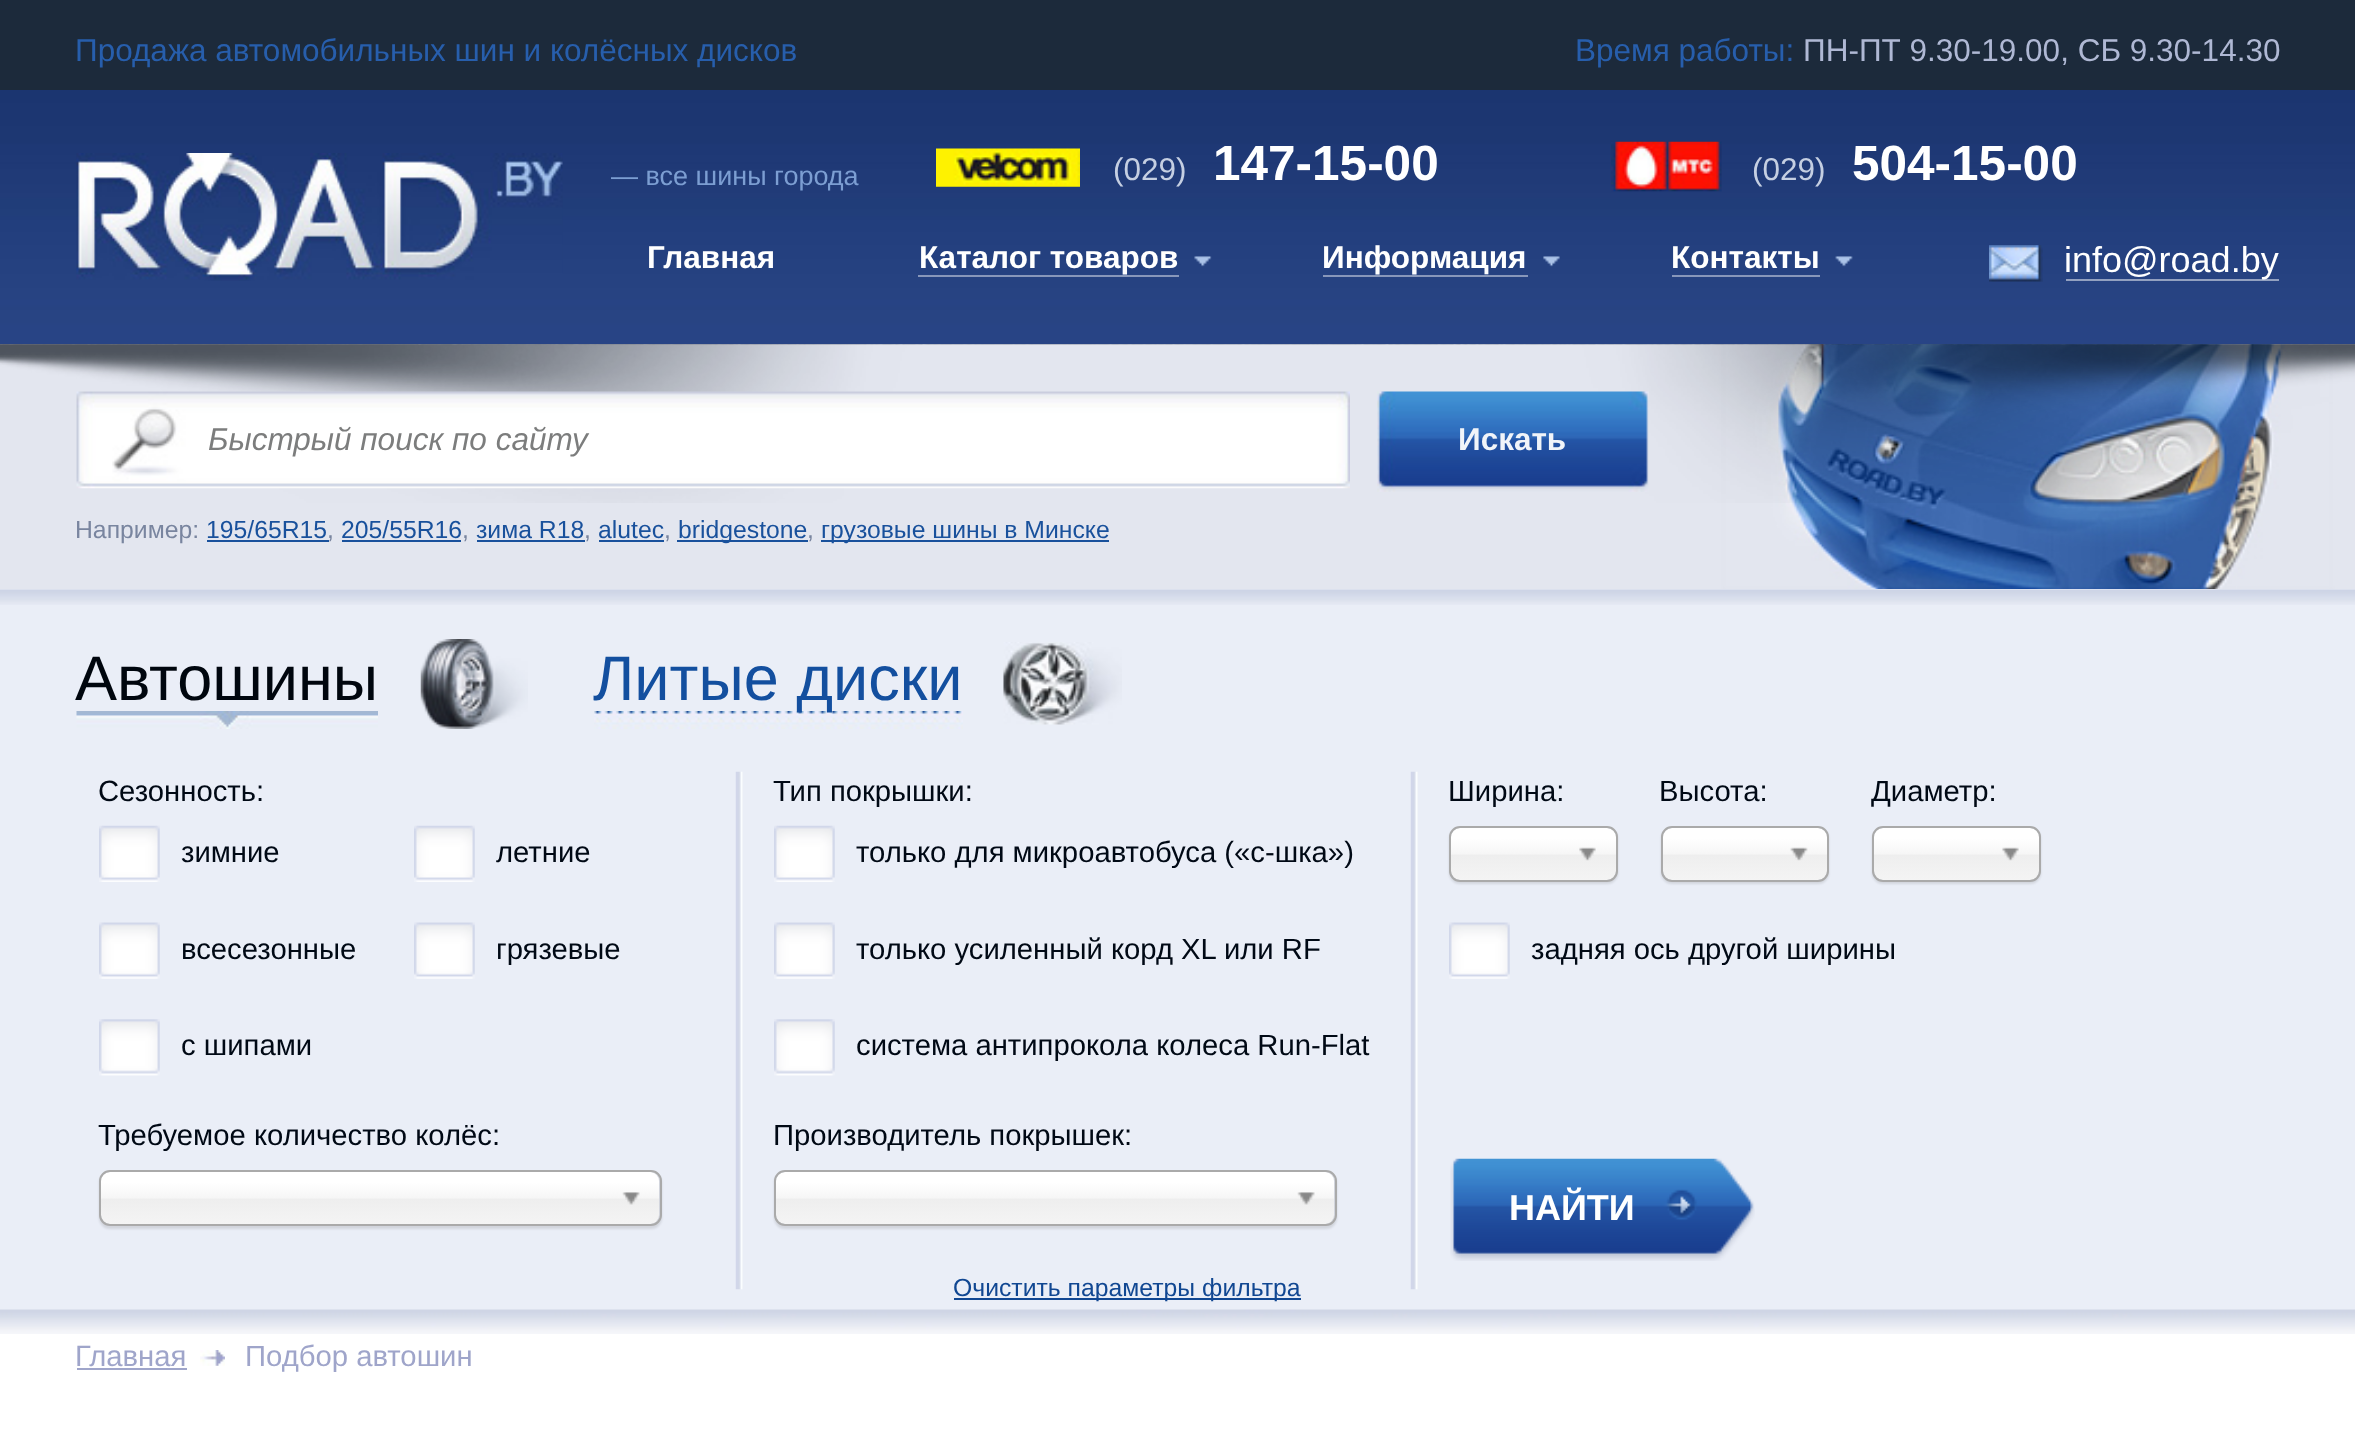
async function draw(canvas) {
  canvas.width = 2355
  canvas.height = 1434
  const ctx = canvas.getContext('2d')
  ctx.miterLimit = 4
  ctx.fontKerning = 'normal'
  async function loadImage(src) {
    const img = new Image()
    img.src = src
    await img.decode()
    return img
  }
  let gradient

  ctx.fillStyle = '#fff'
  ctx.fillRect(0, 0, 2355, 1434)
  ctx.drawImage(await loadImage('image0.png'), 0, 344, 2355, 1)
  ctx.fillStyle = '#1c2a3b'
  ctx.fillRect(0, 0, 2355, 90)
  ctx.font = '31.5px Liberation Sans'
  ctx.fillStyle = '#275eac'
  ctx.fillText('Продажа автомобильных шин и колёсных дисков', 75, 61)
  ctx.fillText('Время работы:', 1575, 61)
  ctx.fillStyle = '#afb8d4'
  ctx.fillText('ПН-ПТ 9.30-19.00, СБ 9.30-14.30', 1803, 61)
  ctx.drawImage(await loadImage('image1.png'), 0, 90, 2355, 255)
  ctx.drawImage(await loadImage('image2.png'), 76, 153, 487, 128)
  ctx.font = '27px Liberation Sans'
  ctx.fillStyle = '#7c9ed2'
  ctx.fillText('— все шины города', 611, 185)
  ctx.drawImage(await loadImage('image3.png'), 936, 148, 144, 39)
  ctx.font = '31.5px Liberation Sans'
  ctx.fillStyle = '#c5cfe2'
  ctx.fillText('(029)', 1113, 180)
  ctx.font = 'bold 49.5px Liberation Sans'
  ctx.fillStyle = '#fff'
  ctx.fillText('147-15-00', 1213, 180)
  ctx.drawImage(await loadImage('image4.png'), 1611, 141, 111, 51)
  ctx.font = '31.5px Liberation Sans'
  ctx.fillStyle = '#c5cfe2'
  ctx.fillText('(029)', 1752, 180)
  ctx.font = 'bold 49.5px Liberation Sans'
  ctx.fillStyle = '#fff'
  ctx.fillText('504-15-00', 1852, 180)
  ctx.font = 'bold 31.5px Liberation Sans'
  ctx.fillText('Главная', 647, 268)
  ctx.drawImage(await loadImage('image5.png'), 1194, 256, 18, 11)
  ctx.fillText('Каталог товаров', 919, 268)
  ctx.fillStyle = '#8897ba'
  ctx.fillRect(918, 275, 261, 2)
  ctx.drawImage(await loadImage('image6.png'), 1543, 256, 17, 11)
  ctx.fillStyle = '#fff'
  ctx.fillText('Информация', 1322, 268)
  ctx.fillStyle = '#8897ba'
  ctx.fillRect(1323, 275, 205, 2)
  ctx.drawImage(await loadImage('image7.png'), 1835, 256, 18, 11)
  ctx.fillStyle = '#fff'
  ctx.fillText('Контакты', 1671, 268)
  ctx.fillStyle = '#8897ba'
  ctx.fillRect(1672, 275, 148, 2)
  ctx.drawImage(await loadImage('image8.png'), 1989, 245, 54, 37)
  ctx.fillStyle = '#93a1c0'
  ctx.fillRect(2066, 279, 213, 2)
  ctx.font = '36px Liberation Sans'
  ctx.fillStyle = '#fff'
  ctx.fillText('info@road.by', 2064, 272)
  ctx.drawImage(await loadImage('image9.png'), 0, 344, 2355, 245)
  ctx.drawImage(await loadImage('image10.png'), 0, 344, 2355, 159)
  ctx.drawImage(await loadImage('image11.png'), 76, 391, 1274, 98)
  ctx.font = 'italic 31.5px Liberation Sans'
  ctx.fillStyle = '#7c7d7d'
  ctx.fillText('Быстрый поиск по сайту', 208, 450)
  ctx.drawImage(await loadImage('image12.png'), 1377, 391, 272, 101)
  ctx.font = 'bold 31.5px Liberation Sans'
  ctx.fillStyle = '#f0f4f9'
  ctx.fillText('Искать', 1458, 450)
  ctx.font = '24.75px Liberation Sans'
  ctx.fillStyle = '#79859f'
  ctx.fillText('Например:', 75, 538)
  ctx.fillStyle = '#19519c'
  ctx.fillText('195/65R15', 206, 538)
  ctx.fillRect(207, 540, 122, 2)
  ctx.fillStyle = '#79859f'
  ctx.fillText(',', 327, 538)
  ctx.fillStyle = '#19519c'
  ctx.fillText('205/55R16', 341, 538)
  ctx.fillRect(342, 540, 119, 2)
  ctx.fillStyle = '#79859f'
  ctx.fillText(',', 462, 538)
  ctx.fillStyle = '#19519c'
  ctx.fillText('зима R18', 476, 538)
  ctx.fillRect(477, 540, 108, 2)
  ctx.fillStyle = '#79859f'
  ctx.fillText(',', 584, 538)
  ctx.fillStyle = '#19519c'
  ctx.fillText('alutec', 598, 538)
  ctx.fillRect(599, 540, 65, 2)
  ctx.fillStyle = '#79859f'
  ctx.fillText(',', 664, 538)
  ctx.fillStyle = '#19519c'
  ctx.fillRect(677, 540, 131, 2)
  ctx.fillText('bridgestone', 678, 538)
  ctx.fillStyle = '#79859f'
  ctx.fillText(',', 807, 538)
  ctx.fillStyle = '#19519c'
  ctx.fillRect(821, 540, 288, 2)
  ctx.fillText('грузовые шины в Минске', 821, 538)
  ctx.fillStyle = '#eaeef7'
  ctx.fillRect(0, 589, 2355, 721)
  ctx.drawImage(await loadImage('image13.png'), 0, 589, 2355, 16)
  ctx.drawImage(await loadImage('image14.png'), 0, 1309, 2355, 25)
  ctx.drawImage(await loadImage('image15.png'), 420, 639, 108, 90)
  ctx.drawImage(await loadImage('image16.png'), 76, 711, 302, 18)
  ctx.font = '63px Liberation Sans'
  ctx.fillStyle = '#00060e'
  ctx.fillText('Автошины', 75, 700)
  ctx.drawImage(await loadImage('image17.png'), 1003, 642, 119, 83)
  ctx.drawImage(await loadImage('image18.png'), 594, 711, 369, 18)
  ctx.fillStyle = '#134f9f'
  ctx.fillText('Литые диски', 593, 700)
  ctx.drawImage(await loadImage('image19.png'), 735, 771, 8, 519)
  ctx.font = '29.25px Liberation Sans'
  ctx.fillStyle = '#000915'
  ctx.fillText('Сезонность:', 98, 801)
  ctx.drawImage(await loadImage('image20.png'), 99, 825, 61, 57)
  ctx.fillText('зимние', 181, 862)
  ctx.drawImage(await loadImage('image20.png'), 414, 825, 61, 57)
  ctx.fillText('летние', 496, 862)
  ctx.drawImage(await loadImage('image21.png'), 99, 922, 61, 57)
  ctx.fillText('всесезонные', 181, 959)
  ctx.drawImage(await loadImage('image21.png'), 414, 922, 61, 57)
  ctx.fillText('грязевые', 496, 959)
  ctx.drawImage(await loadImage('image22.png'), 99, 1019, 61, 57)
  ctx.fillText('с шипами', 181, 1055)
  ctx.fillText('Требуемое количество колёс:', 98, 1145)
  ctx.fillStyle = '#0000001a'
  ctx.filter = 'blur(1px)'
  ctx.beginPath()
  ctx.roundRect(99, 1172, 563, 57, 11)
  ctx.fill()
  ctx.filter = 'none'
  gradient = ctx.createLinearGradient(380, 1172, 380, 1224)
  gradient.addColorStop(0.2, '#fff')
  gradient.addColorStop(0.5, '#f6f6f6')
  gradient.addColorStop(0.52, '#eee')
  gradient.addColorStop(1, '#f4f4f4')
  ctx.fillStyle = gradient
  ctx.beginPath()
  ctx.roundRect(101, 1172, 558, 52, 9)
  ctx.fill()
  ctx.beginPath()
  ctx.roundRect(100, 1171, 561, 54, 10)
  ctx.strokeStyle = '#aaa'
  ctx.lineWidth = 2
  ctx.stroke()
  ctx.drawImage(await loadImage('image23.png'), 622, 1192, 18, 13)
  ctx.drawImage(await loadImage('image24.png'), 1410, 771, 8, 519)
  ctx.fillStyle = '#000915'
  ctx.fillText('Тип покрышки:', 773, 801)
  ctx.drawImage(await loadImage('image25.png'), 774, 825, 61, 57)
  ctx.fillText('только для микроавтобуса («с-шка»)', 856, 862)
  ctx.drawImage(await loadImage('image26.png'), 774, 922, 61, 57)
  ctx.fillText('только усиленный корд XL или RF', 856, 959)
  ctx.drawImage(await loadImage('image27.png'), 774, 1019, 61, 57)
  ctx.fillText('система антипрокола колеса Run-Flat', 856, 1055)
  ctx.fillText('Производитель покрышек:', 773, 1145)
  ctx.fillStyle = '#0000001a'
  ctx.filter = 'blur(1px)'
  ctx.beginPath()
  ctx.roundRect(774, 1172, 563, 57, 11)
  ctx.fill()
  ctx.filter = 'none'
  gradient = ctx.createLinearGradient(1055, 1172, 1055, 1224)
  gradient.addColorStop(0.2, '#fff')
  gradient.addColorStop(0.5, '#f6f6f6')
  gradient.addColorStop(0.52, '#eee')
  gradient.addColorStop(1, '#f4f4f4')
  ctx.fillStyle = gradient
  ctx.beginPath()
  ctx.roundRect(776, 1172, 558, 52, 9)
  ctx.fill()
  ctx.beginPath()
  ctx.roundRect(775, 1171, 561, 54, 10)
  ctx.stroke()
  ctx.drawImage(await loadImage('image23.png'), 1297, 1192, 18, 13)
  ctx.fillStyle = '#000915'
  ctx.fillText('Ширина:', 1448, 801)
  ctx.fillStyle = '#0000001a'
  ctx.filter = 'blur(1px)'
  ctx.beginPath()
  ctx.roundRect(1449, 828, 169, 56, 11)
  ctx.fill()
  ctx.filter = 'none'
  gradient = ctx.createLinearGradient(1533, 828, 1533, 880)
  gradient.addColorStop(0.2, '#fff')
  gradient.addColorStop(0.5, '#f6f6f6')
  gradient.addColorStop(0.52, '#eee')
  gradient.addColorStop(1, '#f4f4f4')
  ctx.fillStyle = gradient
  ctx.beginPath()
  ctx.roundRect(1451, 828, 165, 52, 9)
  ctx.fill()
  ctx.beginPath()
  ctx.roundRect(1450, 827, 167, 54, 10)
  ctx.stroke()
  ctx.drawImage(await loadImage('image28.png'), 1579, 847, 17, 14)
  ctx.fillStyle = '#000915'
  ctx.fillText('Высота:', 1659, 801)
  ctx.fillStyle = '#0000001a'
  ctx.filter = 'blur(1px)'
  ctx.beginPath()
  ctx.roundRect(1661, 828, 168, 56, 11)
  ctx.fill()
  ctx.filter = 'none'
  gradient = ctx.createLinearGradient(1745, 828, 1745, 880)
  gradient.addColorStop(0.2, '#fff')
  gradient.addColorStop(0.5, '#f6f6f6')
  gradient.addColorStop(0.52, '#eee')
  gradient.addColorStop(1, '#f4f4f4')
  ctx.fillStyle = gradient
  ctx.beginPath()
  ctx.roundRect(1663, 828, 164, 52, 9)
  ctx.fill()
  ctx.beginPath()
  ctx.roundRect(1662, 827, 166, 54, 10)
  ctx.stroke()
  ctx.drawImage(await loadImage('image29.png'), 1790, 847, 18, 14)
  ctx.fillStyle = '#000915'
  ctx.fillText('Диаметр:', 1871, 801)
  ctx.fillStyle = '#0000001a'
  ctx.filter = 'blur(1px)'
  ctx.beginPath()
  ctx.roundRect(1872, 828, 169, 56, 11)
  ctx.fill()
  ctx.filter = 'none'
  gradient = ctx.createLinearGradient(1956, 828, 1956, 880)
  gradient.addColorStop(0.2, '#fff')
  gradient.addColorStop(0.5, '#f6f6f6')
  gradient.addColorStop(0.52, '#eee')
  gradient.addColorStop(1, '#f4f4f4')
  ctx.fillStyle = gradient
  ctx.beginPath()
  ctx.roundRect(1874, 828, 165, 52, 9)
  ctx.fill()
  ctx.beginPath()
  ctx.roundRect(1873, 827, 167, 54, 10)
  ctx.stroke()
  ctx.drawImage(await loadImage('image30.png'), 2002, 847, 17, 14)
  ctx.drawImage(await loadImage('image21.png'), 1449, 922, 61, 57)
  ctx.fillStyle = '#000915'
  ctx.fillText('задняя ось другой ширины', 1531, 959)
  ctx.drawImage(await loadImage('image31.png'), 1450, 1158, 305, 103)
  ctx.font = 'bold 36px Liberation Sans'
  ctx.fillStyle = '#fff'
  ctx.fillText('НАЙТИ', 1509, 1220)
  ctx.fillStyle = '#114792'
  ctx.fillRect(954, 1298, 347, 2)
  ctx.font = '24.75px Liberation Sans'
  ctx.fillText('Очистить параметры фильтра', 953, 1296)
  ctx.font = '29.25px Liberation Sans'
  ctx.fillStyle = '#9fa5ca'
  ctx.fillText('Главная', 75, 1366)
  ctx.fillRect(77, 1368, 110, 2)
  ctx.drawImage(await loadImage('image32.png'), 200, 1350, 25, 16)
  ctx.fillText('Подбор автошин', 245, 1366)
}

draw(document.querySelector('canvas'))
